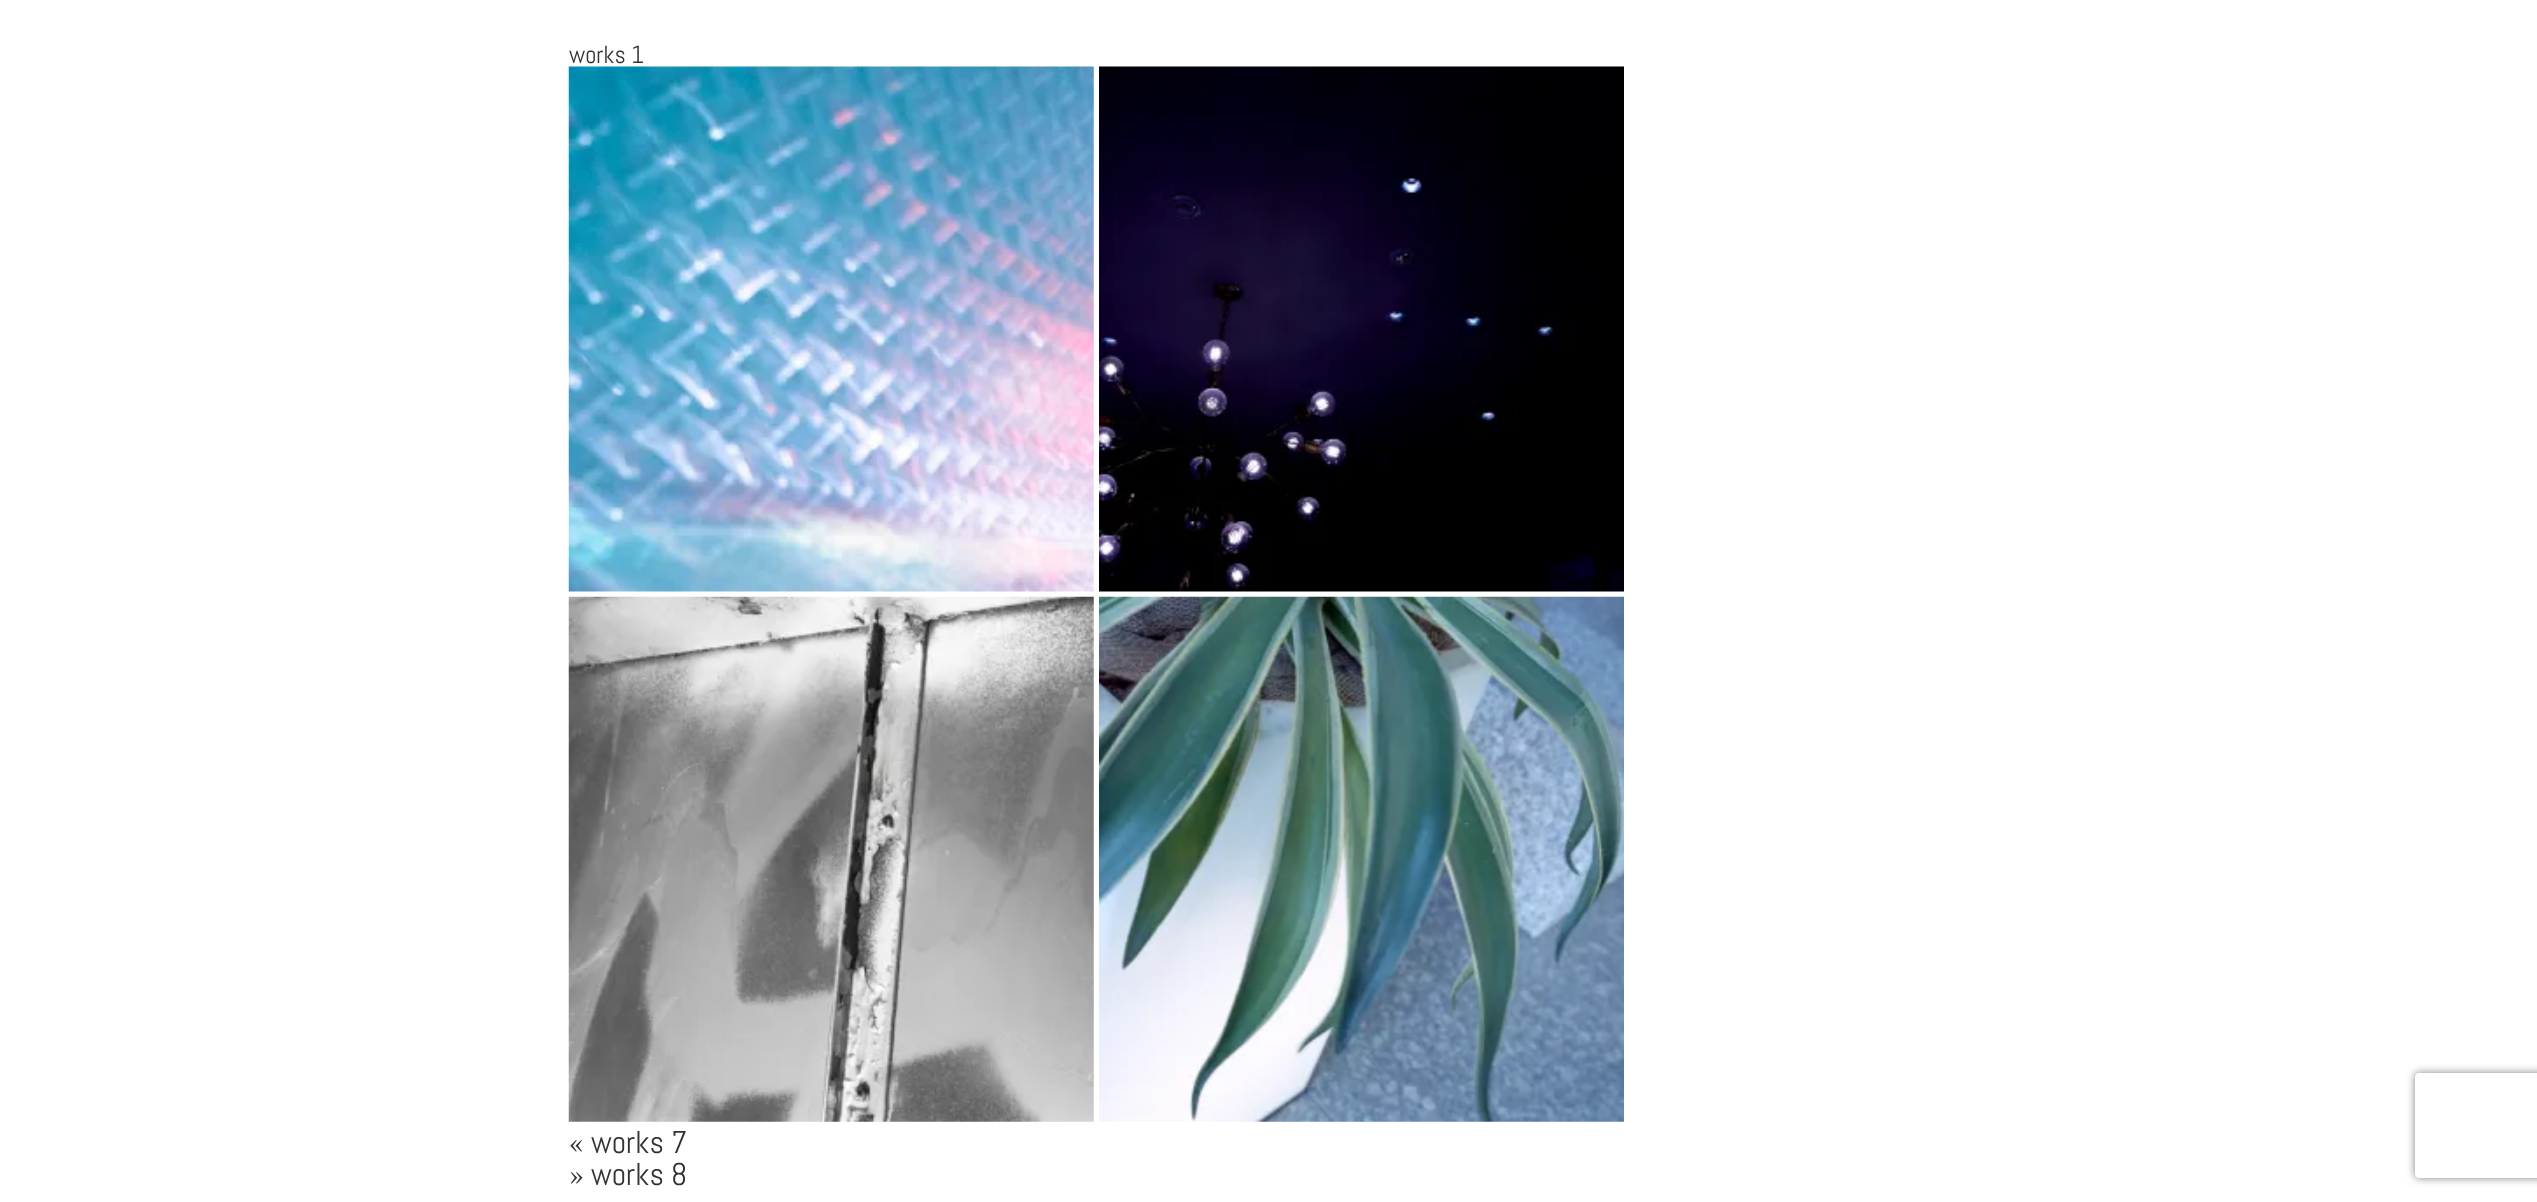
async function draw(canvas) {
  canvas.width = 2537
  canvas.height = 1202
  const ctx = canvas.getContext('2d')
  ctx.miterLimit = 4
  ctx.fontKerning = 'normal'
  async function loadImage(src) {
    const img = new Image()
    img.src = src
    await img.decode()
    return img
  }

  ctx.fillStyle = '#fff'
  ctx.fillRect(0, 0, 2537, 1202)
  ctx.font = '24.5px Abel'
  ctx.fillStyle = '#333'
  ctx.fillText('works 1', 569, 63)
  ctx.drawImage(await loadImage('image0.png'), 568, 66, 526, 526)
  ctx.drawImage(await loadImage('image1.png'), 1099, 66, 525, 526)
  ctx.drawImage(await loadImage('image2.png'), 568, 596, 526, 526)
  ctx.drawImage(await loadImage('image3.png'), 1099, 596, 525, 526)
  ctx.font = '31.5px Abel'
  ctx.fillText('« works 7', 569, 1153)
  ctx.fillText('» works 8', 569, 1185)
  ctx.save()
  ctx.beginPath()
  ctx.moveTo(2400, 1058)
  ctx.lineTo(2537, 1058)
  ctx.lineTo(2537, 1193)
  ctx.lineTo(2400, 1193)
  ctx.closePath()
  ctx.moveTo(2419, 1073)
  ctx.lineTo(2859, 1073)
  ctx.bezierCurveTo(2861, 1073, 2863, 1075, 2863, 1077)
  ctx.lineTo(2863, 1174)
  ctx.bezierCurveTo(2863, 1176, 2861, 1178, 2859, 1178)
  ctx.lineTo(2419, 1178)
  ctx.bezierCurveTo(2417, 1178, 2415, 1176, 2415, 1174)
  ctx.lineTo(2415, 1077)
  ctx.bezierCurveTo(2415, 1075, 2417, 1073, 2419, 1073)
  ctx.closePath()
  ctx.clip('evenodd')
  ctx.fillStyle = '#808080'
  ctx.filter = 'blur(4.5px)'
  ctx.beginPath()
  ctx.roundRect(2415, 1073, 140, 105, 4)
  ctx.fill()
  ctx.filter = 'none'
  ctx.restore()
}

draw(document.querySelector('canvas'))
